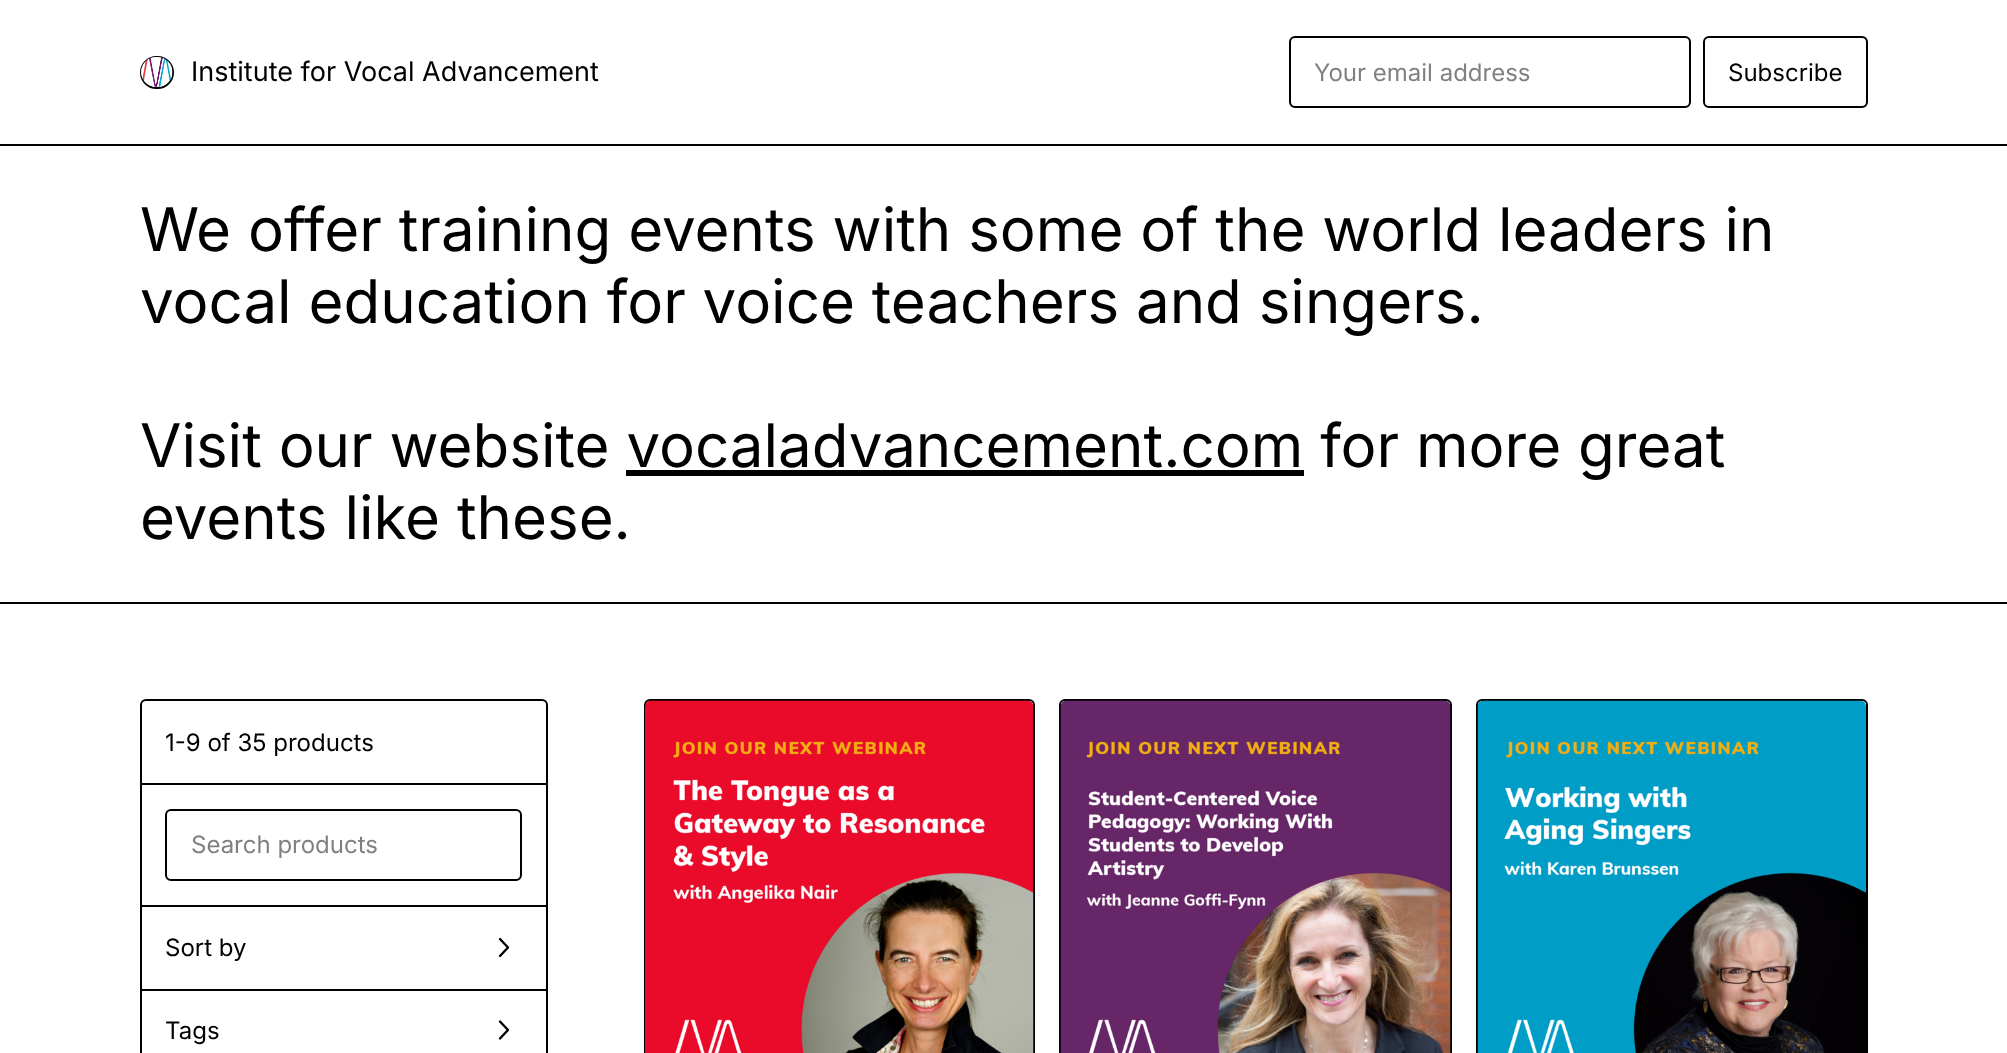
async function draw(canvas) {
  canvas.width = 2007
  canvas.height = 1053
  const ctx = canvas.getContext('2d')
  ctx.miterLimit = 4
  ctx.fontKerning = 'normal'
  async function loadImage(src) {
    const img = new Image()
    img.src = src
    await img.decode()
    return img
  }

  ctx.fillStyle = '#fff'
  ctx.fillRect(0, 0, 2007, 1053)
  ctx.fillStyle = '#000'
  ctx.fillRect(0, 144, 2007, 2)
  ctx.beginPath()
  ctx.roundRect(141, 57, 32, 31, 15.5)
  ctx.strokeStyle = '#000'
  ctx.lineWidth = 2
  ctx.stroke()
  ctx.drawImage(await loadImage('image0.png'), 141, 57, 32, 30)
  ctx.font = '27px Inter'
  ctx.fillText('Institute for Vocal Advancement', 191, 81)
  ctx.beginPath()
  ctx.roundRect(1290, 37, 400, 70, 5)
  ctx.stroke()
  ctx.font = '24px Inter'
  ctx.fillStyle = '#808080'
  ctx.fillText('Your email address', 1314, 81)
  ctx.beginPath()
  ctx.roundRect(1704, 37, 163, 70, 5)
  ctx.stroke()
  ctx.fillStyle = '#000'
  ctx.fillText('Subscribe', 1728, 81)
  ctx.fillRect(0, 602, 2007, 2)
  ctx.font = '60px Inter'
  ctx.fillText('We offer training events with some of the world leaders in', 140, 251)
  ctx.fillText('vocal education for voice teachers and singers.', 140, 323)
  ctx.fillText('Visit our website vocaladvancement.com for more great', 140, 467)
  ctx.fillRect(626, 470, 678, 6)
  ctx.fillText('events like these.', 140, 539)
  ctx.beginPath()
  ctx.roundRect(141, 700, 406, 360, 5)
  ctx.stroke()
  ctx.fillRect(141, 783, 405, 2)
  ctx.font = '24px Inter'
  ctx.fillText('1-9 of 35 products', 165, 751)
  ctx.fillRect(141, 905, 405, 2)
  ctx.beginPath()
  ctx.roundRect(166, 810, 355, 70, 5)
  ctx.stroke()
  ctx.fillStyle = '#808080'
  ctx.fillText('Search products', 191, 853)
  ctx.fillStyle = '#000'
  ctx.fillRect(141, 989, 405, 2)
  ctx.fillText('Sort by', 165, 956)
  ctx.beginPath()
  ctx.moveTo(500, 939)
  ctx.lineTo(508, 947.5)
  ctx.lineTo(500, 956)
  ctx.lineWidth = 2.4
  ctx.lineCap = 'round'
  ctx.lineJoin = 'round'
  ctx.stroke()
  ctx.fillText('Tags', 165, 1039)
  ctx.beginPath()
  ctx.moveTo(500, 1021.5)
  ctx.lineTo(508, 1030)
  ctx.lineTo(500, 1038.5)
  ctx.stroke()
  ctx.beginPath()
  ctx.roundRect(645, 700, 389, 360, 5)
  ctx.lineWidth = 2
  ctx.lineJoin = 'miter'
  ctx.stroke()
  ctx.drawImage(await loadImage('image1.png'), 645, 700, 389, 353)
  ctx.beginPath()
  ctx.roundRect(1060, 700, 391, 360, 5)
  ctx.stroke()
  ctx.drawImage(await loadImage('image2.png'), 1060, 700, 391, 353)
  ctx.beginPath()
  ctx.roundRect(1477, 700, 390, 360, 5)
  ctx.stroke()
  ctx.drawImage(await loadImage('image3.png'), 1477, 700, 389, 353)
}

draw(document.querySelector('canvas'))
